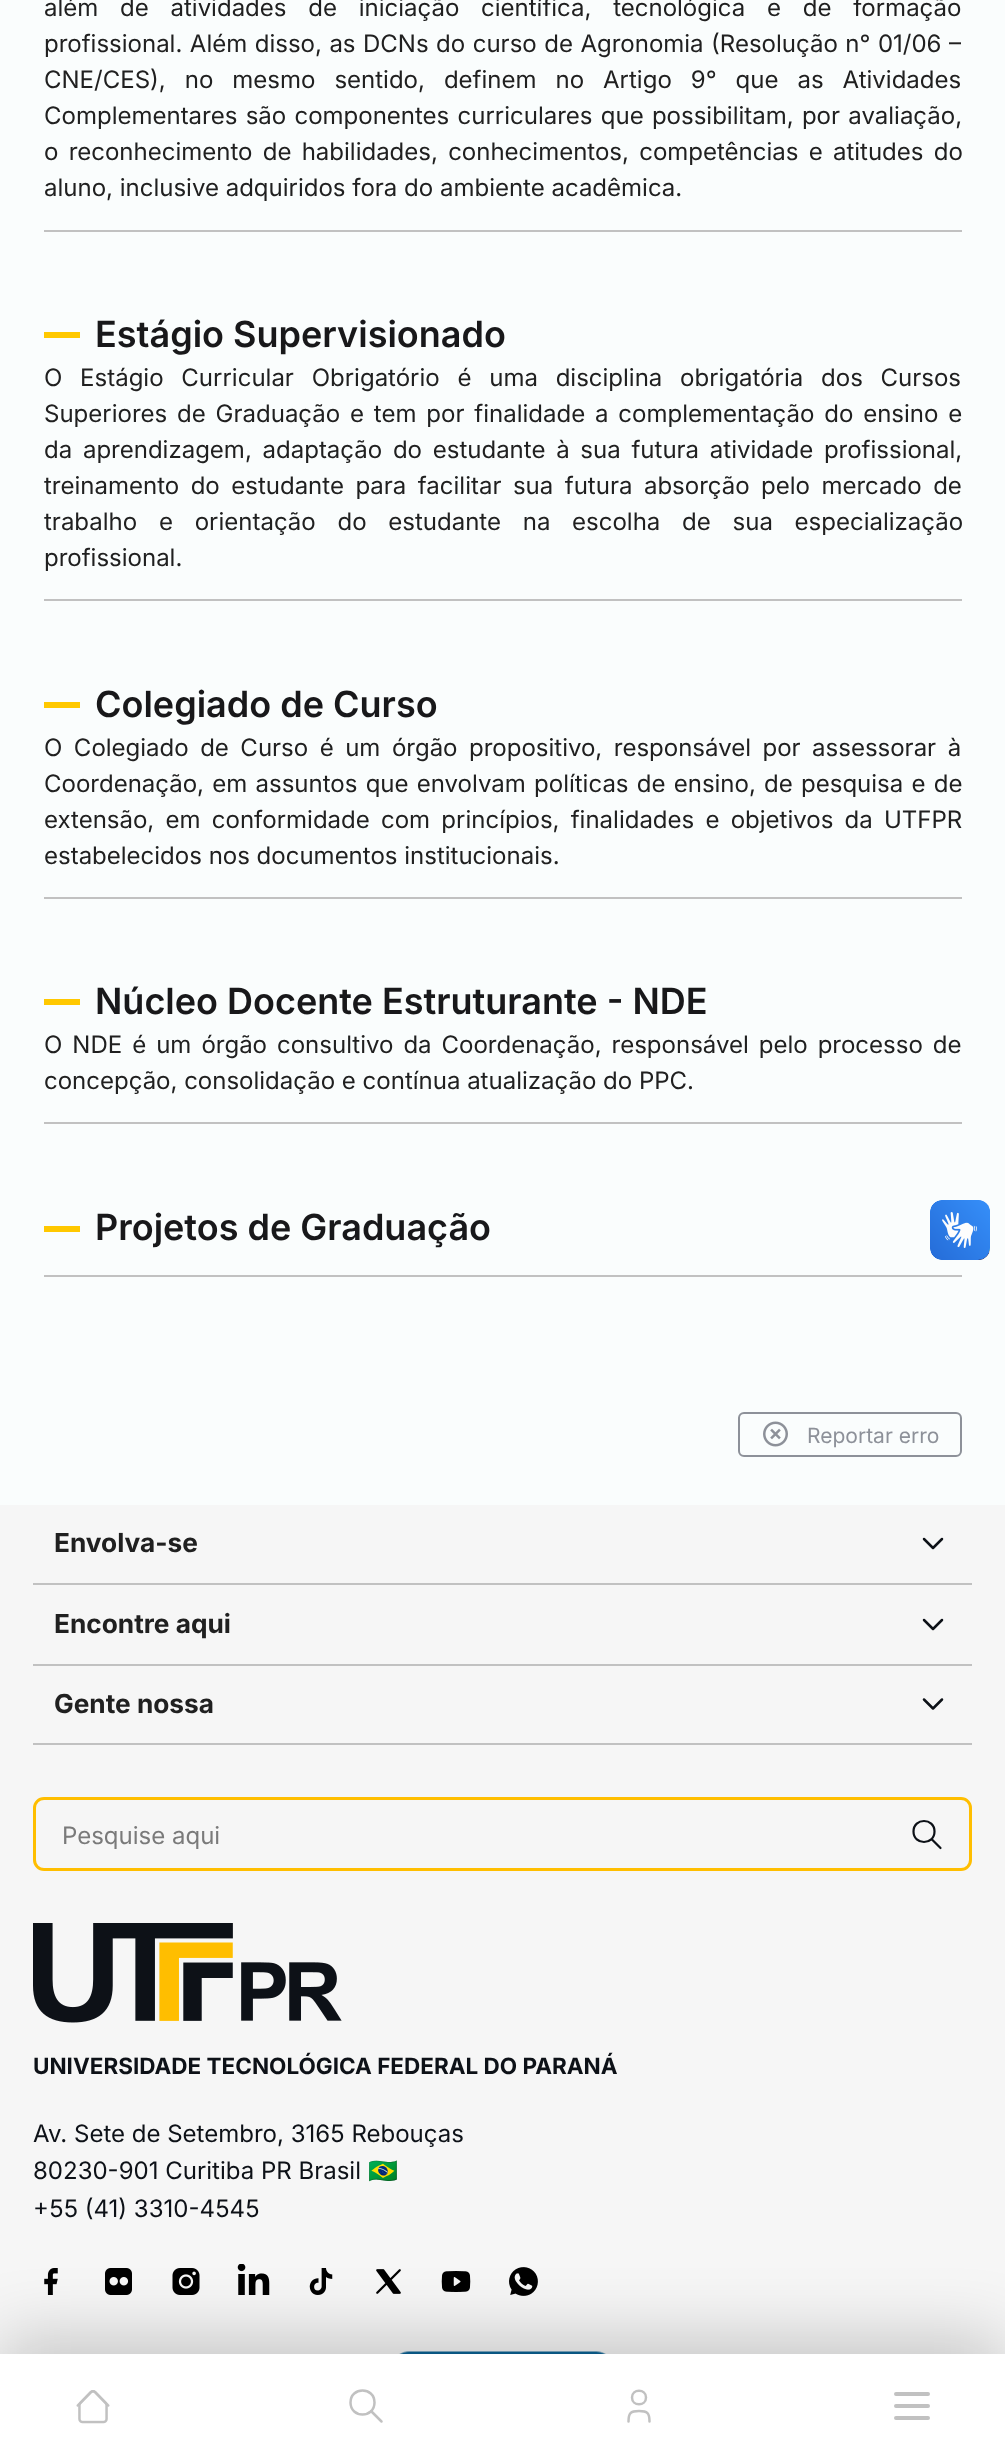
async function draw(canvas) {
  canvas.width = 1005
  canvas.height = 2458
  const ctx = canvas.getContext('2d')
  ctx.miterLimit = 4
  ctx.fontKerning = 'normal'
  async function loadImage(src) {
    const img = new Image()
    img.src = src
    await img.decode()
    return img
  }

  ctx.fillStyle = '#fafdfd'
  ctx.fillRect(0, 0, 1005, 2458)
  ctx.wordSpacing = '15px'
  ctx.font = '24px Inter'
  ctx.fillStyle = '#202020'
  ctx.fillText('além de atividades de iniciação científica, tecnológica e de formação', 44, 16)
  ctx.wordSpacing = '0.75px'
  ctx.fillText('profissional. Além disso, as DCNs do curso de Agronomia (Resolução n° 01/06 –', 44, 52)
  ctx.wordSpacing = '12.25px'
  ctx.fillText('CNE/CES), no mesmo sentido, definem no Artigo 9° que as Atividades', 44, 88)
  ctx.wordSpacing = '1.5px'
  ctx.fillText('Complementares são componentes curriculares que possibilitam, por avaliação,', 44, 124)
  ctx.wordSpacing = '3.5px'
  ctx.fillText('o reconhecimento de habilidades, conhecimentos, competências e atitudes do', 44, 160)
  ctx.wordSpacing = '0px'
  ctx.fillText('aluno, inclusive adquiridos fora do ambiente acadêmica.', 44, 196)
  ctx.fillStyle = '#c1c1c1'
  ctx.fillRect(44, 230, 918, 2)
  ctx.fillStyle = '#ffc800'
  ctx.fillRect(44, 332, 36, 6)
  ctx.font = '600 36px Inter'
  ctx.fillStyle = '#18181a'
  ctx.fillText('Estágio Supervisionado', 95, 347)
  ctx.wordSpacing = '11px'
  ctx.font = '24px Inter'
  ctx.fillStyle = '#202020'
  ctx.fillText('O Estágio Curricular Obrigatório é uma disciplina obrigatória dos Cursos', 44, 386)
  ctx.wordSpacing = '3.1px'
  ctx.fillText('Superiores de Graduação e tem por finalidade a complementação do ensino e', 44, 422)
  ctx.wordSpacing = '4px'
  ctx.fillText('da aprendizagem, adaptação do estudante à sua futura atividade profissional,', 44, 458)
  ctx.wordSpacing = '4.75px'
  ctx.fillText('treinamento do estudante para facilitar sua futura absorção pelo mercado de', 44, 494)
  ctx.wordSpacing = '15px'
  ctx.fillText('trabalho e orientação do estudante na escolha de sua especialização', 44, 530)
  ctx.wordSpacing = '0px'
  ctx.fillText('profissional.', 44, 566)
  ctx.fillStyle = '#c1c1c1'
  ctx.fillRect(44, 599, 918, 2)
  ctx.fillStyle = '#ffc800'
  ctx.fillRect(44, 702, 36, 6)
  ctx.font = '600 36px Inter'
  ctx.fillStyle = '#18181a'
  ctx.fillText('Colegiado de Curso', 95, 717)
  ctx.wordSpacing = '4.75px'
  ctx.font = '24px Inter'
  ctx.fillStyle = '#202020'
  ctx.fillText('O Colegiado de Curso é um órgão propositivo, responsável por assessorar à', 44, 756)
  ctx.wordSpacing = '1.5px'
  ctx.fillText('Coordenação, em assuntos que envolvam políticas de ensino, de pesquisa e de', 44, 792)
  ctx.wordSpacing = '4.5px'
  ctx.fillText('extensão, em conformidade com princípios, finalidades e objetivos da UTFPR', 44, 828)
  ctx.wordSpacing = '0px'
  ctx.fillText('estabelecidos nos documentos institucionais.', 44, 864)
  ctx.fillStyle = '#c1c1c1'
  ctx.fillRect(44, 897, 918, 2)
  ctx.fillStyle = '#ffc800'
  ctx.fillRect(44, 999, 36, 6)
  ctx.font = '600 36px Inter'
  ctx.fillStyle = '#18181a'
  ctx.fillText('Núcleo Docente Estruturante - NDE', 95, 1014)
  ctx.wordSpacing = '3.25px'
  ctx.font = '24px Inter'
  ctx.fillStyle = '#202020'
  ctx.fillText('O NDE é um órgão consultivo da Coordenação, responsável pelo processo de', 44, 1053)
  ctx.wordSpacing = '0px'
  ctx.fillText('concepção, consolidação e contínua atualização do PPC.', 44, 1089)
  ctx.fillStyle = '#c1c1c1'
  ctx.fillRect(44, 1122, 918, 2)
  ctx.fillStyle = '#ffc800'
  ctx.fillRect(44, 1226, 36, 6)
  ctx.font = '600 36px Inter'
  ctx.fillStyle = '#18181a'
  ctx.fillText('Projetos de Graduação', 95, 1240)
  ctx.fillStyle = '#c1c1c1'
  ctx.fillRect(44, 1275, 918, 2)
  ctx.beginPath()
  ctx.roundRect(739, 1413, 222, 43, 5)
  ctx.strokeStyle = '#8d9199'
  ctx.lineWidth = 2
  ctx.stroke()
  ctx.drawImage(await loadImage('image0.png'), 763, 1421, 25, 26)
  ctx.font = '21px Inter'
  ctx.fillStyle = '#8d9199'
  ctx.fillText('Reportar erro', 807, 1443)
  ctx.fillStyle = '#f6f6f6'
  ctx.fillRect(0, 1505, 1005, 849)
  ctx.fillStyle = '#c1c1c1'
  ctx.fillRect(33, 1583, 939, 2)
  ctx.font = 'bold 26.25px Inter'
  ctx.fillStyle = '#202020'
  ctx.fillText('Envolva-se', 54, 1552)
  ctx.beginPath()
  ctx.moveTo(924, 1539)
  ctx.lineTo(933, 1548)
  ctx.lineTo(942, 1539)
  ctx.strokeStyle = '#0d1117'
  ctx.lineWidth = 2.5
  ctx.lineCap = 'round'
  ctx.lineJoin = 'round'
  ctx.stroke()
  ctx.fillStyle = '#c1c1c1'
  ctx.fillRect(33, 1664, 939, 2)
  ctx.fillStyle = '#202020'
  ctx.fillText('Encontre aqui', 54, 1633)
  ctx.beginPath()
  ctx.moveTo(924, 1620)
  ctx.lineTo(933, 1629)
  ctx.lineTo(942, 1620)
  ctx.stroke()
  ctx.fillStyle = '#c1c1c1'
  ctx.fillRect(33, 1743, 939, 2)
  ctx.fillStyle = '#202020'
  ctx.fillText('Gente nossa', 54, 1713)
  ctx.beginPath()
  ctx.moveTo(924, 1699.5)
  ctx.lineTo(933, 1708.5)
  ctx.lineTo(942, 1699.5)
  ctx.stroke()
  ctx.beginPath()
  ctx.roundRect(34.5, 1798.5, 936, 71, 9.5)
  ctx.strokeStyle = '#ffbe00'
  ctx.lineWidth = 3
  ctx.lineJoin = 'miter'
  ctx.stroke()
  ctx.font = '24px Inter'
  ctx.fillStyle = '#7a7a7a'
  ctx.fillText('Pesquise aqui', 62, 1844)
  ctx.beginPath()
  ctx.moveTo(940.5, 1848)
  ctx.lineTo(931.5, 1839)
  ctx.moveTo(913.5, 1831.5)
  ctx.bezierCurveTo(913.5, 1845.5, 934.5, 1845.5, 934.5, 1831.5)
  ctx.bezierCurveTo(934.5, 1817.5, 913.5, 1817.5, 913.5, 1831.5)
  ctx.closePath()
  ctx.strokeStyle = '#0d1117'
  ctx.lineWidth = 2.2
  ctx.lineJoin = 'round'
  ctx.stroke()
  ctx.drawImage(await loadImage('image1.png'), 33, 1923, 309, 100)
  ctx.font = 'bold 22.5px Inter'
  ctx.fillStyle = '#0d1117'
  ctx.fillText('UNIVERSIDADE TECNOLÓGICA FEDERAL DO PARANÁ', 33, 2074)
  ctx.font = '24px Inter'
  ctx.fillText('Av. Sete de Setembro, 3165 Rebouças', 33, 2142)
  ctx.fillText('80230-901 Curitiba PR Brasil', 33, 2179)
  ctx.font = '24px Noto Color Emoji'
  ctx.fillText('🇧🇷', 368, 2179)
  ctx.font = '24px Inter'
  ctx.fillText('+55 (41) 3310-4545', 33, 2217)
  ctx.drawImage(await loadImage('image2.png'), 44, 2268, 14, 27)
  ctx.drawImage(await loadImage('image3.png'), 105, 2268, 27, 27)
  ctx.drawImage(await loadImage('image4.png'), 172, 2268, 28, 27)
  ctx.drawImage(await loadImage('image5.png'), 237, 2264, 33, 31)
  ctx.drawImage(await loadImage('image6.png'), 309, 2268, 24, 27)
  ctx.drawImage(await loadImage('image7.png'), 376, 2269, 25, 25)
  ctx.drawImage(await loadImage('image8.png'), 441, 2271, 30, 21)
  ctx.drawImage(await loadImage('image9.png'), 509, 2267, 29, 29)
  ctx.drawImage(await loadImage('image10.png'), 399, 2351, 207, 3)
  ctx.fillStyle = '#00000033'
  ctx.filter = 'blur(34px)'
  ctx.beginPath()
  ctx.rect(0, 2339, 1005, 105)
  ctx.fill()
  ctx.filter = 'none'
  ctx.fillStyle = '#fff'
  ctx.fillRect(0, 2354, 1005, 104)
  ctx.drawImage(await loadImage('image11.png'), 76, 2390, 34, 34)
  ctx.beginPath()
  ctx.moveTo(381.5, 2421.5)
  ctx.lineTo(371, 2411)
  ctx.moveTo(350.5, 2402.5)
  ctx.bezierCurveTo(350.5, 2418.5, 374.5, 2418.5, 374.5, 2402.5)
  ctx.bezierCurveTo(374.5, 2386.5, 350.5, 2386.5, 350.5, 2402.5)
  ctx.closePath()
  ctx.strokeStyle = '#c1c1c1'
  ctx.lineWidth = 2.5
  ctx.stroke()
  ctx.beginPath()
  ctx.moveTo(628.5, 2421.5)
  ctx.bezierCurveTo(628.5, 2413, 630.5, 2411, 639, 2411)
  ctx.bezierCurveTo(647.5, 2411, 649.5, 2413, 649.5, 2421.5)
  ctx.moveTo(632, 2397.5)
  ctx.bezierCurveTo(632, 2406.5, 646, 2406.5, 646, 2397.5)
  ctx.bezierCurveTo(646, 2388.5, 632, 2388.5, 632, 2397.5)
  ctx.closePath()
  ctx.stroke()
  ctx.beginPath()
  ctx.moveTo(896, 2418)
  ctx.lineTo(928, 2418)
  ctx.moveTo(896, 2406)
  ctx.lineTo(928, 2406)
  ctx.moveTo(896, 2394)
  ctx.lineTo(928, 2394)
  ctx.lineWidth = 4
  ctx.lineJoin = 'miter'
  ctx.stroke()
  ctx.drawImage(await loadImage('image12.png'), 930, 1200, 60, 60)
  ctx.drawImage(await loadImage('image13.png'), 930, 1200, 60, 60)
}

draw(document.querySelector('canvas'))
